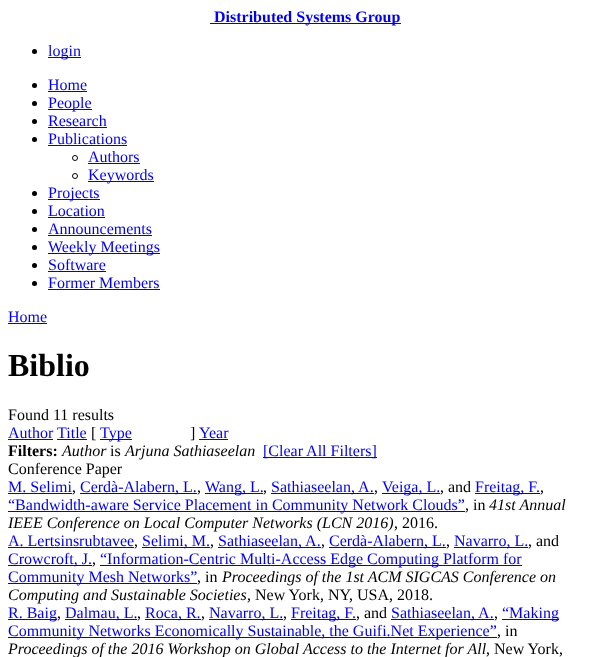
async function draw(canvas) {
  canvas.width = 599
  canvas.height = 657
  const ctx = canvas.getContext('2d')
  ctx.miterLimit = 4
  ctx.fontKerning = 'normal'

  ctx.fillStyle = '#fff'
  ctx.fillRect(0, 0, 599, 657)
  ctx.fillStyle = '#00e'
  ctx.fillRect(210, 23, 191, 1)
  ctx.font = 'bold 16px Liberation Serif'
  ctx.fillText('Distributed Systems Group', 214, 22)
  ctx.fillStyle = '#000'
  ctx.beginPath()
  ctx.arc(34.5, 51.5, 2.5, 0, 2 * Math.PI)
  ctx.fill()
  ctx.fillStyle = '#00e'
  ctx.fillRect(48, 57, 33, 1)
  ctx.font = '16px Liberation Serif'
  ctx.fillText('login', 48, 56)
  ctx.fillStyle = '#000'
  ctx.beginPath()
  ctx.arc(34.5, 85.5, 2.5, 0, 2 * Math.PI)
  ctx.fill()
  ctx.fillStyle = '#00e'
  ctx.fillText('Home', 48, 90)
  ctx.fillRect(48, 91, 39, 1)
  ctx.fillStyle = '#000'
  ctx.beginPath()
  ctx.arc(34.5, 103.5, 2.5, 0, 2 * Math.PI)
  ctx.fill()
  ctx.fillStyle = '#00e'
  ctx.fillRect(48, 109, 44, 1)
  ctx.fillText('People', 48, 108)
  ctx.fillStyle = '#000'
  ctx.beginPath()
  ctx.arc(34.5, 121.5, 2.5, 0, 2 * Math.PI)
  ctx.fill()
  ctx.fillStyle = '#00e'
  ctx.fillText('Research', 48, 126)
  ctx.fillRect(48, 127, 59, 1)
  ctx.fillStyle = '#000'
  ctx.beginPath()
  ctx.arc(34.5, 139.5, 2.5, 0, 2 * Math.PI)
  ctx.fill()
  ctx.fillStyle = '#00e'
  ctx.fillText('Publications', 48, 144)
  ctx.fillRect(48, 145, 79, 1)
  ctx.beginPath()
  ctx.arc(75, 158, 2.5, 0, 2 * Math.PI)
  ctx.strokeStyle = '#000'
  ctx.stroke()
  ctx.fillText('Authors', 88, 162)
  ctx.fillRect(88, 163, 52, 1)
  ctx.beginPath()
  ctx.arc(75, 176, 2.5, 0, 2 * Math.PI)
  ctx.stroke()
  ctx.fillRect(88, 181, 66, 1)
  ctx.fillText('Keywords', 88, 180)
  ctx.fillStyle = '#000'
  ctx.beginPath()
  ctx.arc(34.5, 193.5, 2.5, 0, 2 * Math.PI)
  ctx.fill()
  ctx.fillStyle = '#00e'
  ctx.fillRect(48, 199, 52, 1)
  ctx.fillText('Projects', 48, 198)
  ctx.fillStyle = '#000'
  ctx.beginPath()
  ctx.arc(34.5, 211.5, 2.5, 0, 2 * Math.PI)
  ctx.fill()
  ctx.fillStyle = '#00e'
  ctx.fillText('Location', 48, 216)
  ctx.fillRect(48, 217, 57, 1)
  ctx.fillStyle = '#000'
  ctx.beginPath()
  ctx.arc(34.5, 229.5, 2.5, 0, 2 * Math.PI)
  ctx.fill()
  ctx.fillStyle = '#00e'
  ctx.fillText('Announcements', 48, 234)
  ctx.fillRect(48, 235, 104, 1)
  ctx.fillStyle = '#000'
  ctx.beginPath()
  ctx.arc(34.5, 247.5, 2.5, 0, 2 * Math.PI)
  ctx.fill()
  ctx.fillStyle = '#00e'
  ctx.fillRect(48, 253, 112, 1)
  ctx.fillText('Weekly Meetings', 48, 252)
  ctx.fillStyle = '#000'
  ctx.beginPath()
  ctx.arc(34.5, 265.5, 2.5, 0, 2 * Math.PI)
  ctx.fill()
  ctx.fillStyle = '#00e'
  ctx.fillText('Software', 48, 270)
  ctx.fillRect(48, 271, 58, 1)
  ctx.fillStyle = '#000'
  ctx.beginPath()
  ctx.arc(34.5, 283.5, 2.5, 0, 2 * Math.PI)
  ctx.fill()
  ctx.fillStyle = '#00e'
  ctx.fillText('Former Members', 48, 288)
  ctx.fillRect(48, 289, 112, 1)
  ctx.fillText('Home', 8, 322)
  ctx.fillRect(8, 323, 39, 1)
  ctx.font = 'bold 32px Liberation Serif'
  ctx.fillStyle = '#000'
  ctx.fillText('Biblio', 8, 376)
  ctx.font = '16px Liberation Serif'
  ctx.fillText('Found 11 results', 8, 420)
  ctx.fillStyle = '#00e'
  ctx.fillText('Author Title', 8, 438)
  ctx.fillRect(8, 439, 45, 1)
  ctx.fillStyle = '#000'
  ctx.fillText('[', 91, 438)
  ctx.fillStyle = '#00e'
  ctx.fillRect(100, 439, 32, 1)
  ctx.fillText('Type', 100, 438)
  ctx.fillStyle = '#000'
  ctx.fillText(']', 190, 438)
  ctx.fillStyle = '#00e'
  ctx.fillText('Year', 199, 438)
  ctx.fillRect(199, 439, 29, 1)
  ctx.fillRect(57, 439, 30, 1)
  ctx.font = 'bold 16px Liberation Serif'
  ctx.fillStyle = '#000'
  ctx.fillText('Filters:', 8, 456)
  ctx.font = 'italic 16px Liberation Serif'
  ctx.fillText('Author', 62, 456)
  ctx.font = '16px Liberation Serif'
  ctx.fillText('is', 110, 456)
  ctx.font = 'italic 16px Liberation Serif'
  ctx.fillText('Arjuna Sathiaseelan', 125, 456)
  ctx.fillStyle = '#00e'
  ctx.fillRect(263, 457, 114, 1)
  ctx.font = '16px Liberation Serif'
  ctx.fillText('[Clear All Filters]', 263, 456)
  ctx.fillStyle = '#000'
  ctx.fillText('Conference Paper', 8, 474)
  ctx.fillStyle = '#00e'
  ctx.fillText('M. Selimi', 8, 492)
  ctx.fillStyle = '#000'
  ctx.fillText(',', 72, 492)
  ctx.fillStyle = '#00e'
  ctx.fillRect(8, 493, 64, 1)
  ctx.fillRect(80, 493, 117, 1)
  ctx.fillText('Cerdà-Alabern, L.', 80, 492)
  ctx.fillStyle = '#000'
  ctx.fillText(',', 197, 492)
  ctx.fillStyle = '#00e'
  ctx.fillRect(205, 493, 58, 1)
  ctx.fillText('Wang, L.', 205, 492)
  ctx.fillStyle = '#000'
  ctx.fillText(',', 263, 492)
  ctx.fillStyle = '#00e'
  ctx.fillRect(271, 493, 103, 1)
  ctx.fillText('Sathiaseelan, A.', 271, 492)
  ctx.fillStyle = '#000'
  ctx.fillText(',', 374, 492)
  ctx.fillStyle = '#00e'
  ctx.fillRect(382, 493, 58, 1)
  ctx.fillText('Veiga, L.', 382, 492)
  ctx.fillStyle = '#000'
  ctx.fillText(', and', 440, 492)
  ctx.fillStyle = '#00e'
  ctx.fillRect(475, 493, 65, 1)
  ctx.fillText('Freitag, F.', 475, 492)
  ctx.fillStyle = '#000'
  ctx.fillText(',', 540, 492)
  ctx.fillStyle = '#00e'
  ctx.fillRect(8, 511, 457, 1)
  ctx.fillText('“Bandwidth-aware Service Placement in Community Network Clouds”', 8, 510)
  ctx.fillStyle = '#000'
  ctx.fillText(', in', 465, 510)
  ctx.font = 'italic 16px Liberation Serif'
  ctx.fillText('41st Annual', 489, 510)
  ctx.fillText('IEEE Conference on Local Computer Networks (LCN 2016)', 8, 528)
  ctx.font = '16px Liberation Serif'
  ctx.fillText(', 2016.', 394, 528)
  ctx.fillStyle = '#00e'
  ctx.fillText('A. Lertsinsrubtavee', 8, 546)
  ctx.fillStyle = '#000'
  ctx.fillText(',', 134, 546)
  ctx.fillStyle = '#00e'
  ctx.fillRect(8, 547, 126, 1)
  ctx.fillRect(142, 547, 68, 1)
  ctx.fillText('Selimi, M.', 142, 546)
  ctx.fillStyle = '#000'
  ctx.fillText(',', 210, 546)
  ctx.fillStyle = '#00e'
  ctx.fillRect(218, 547, 103, 1)
  ctx.fillText('Sathiaseelan, A.', 218, 546)
  ctx.fillStyle = '#000'
  ctx.fillText(',', 321, 546)
  ctx.fillStyle = '#00e'
  ctx.fillRect(329, 547, 117, 1)
  ctx.fillText('Cerdà-Alabern, L.', 329, 546)
  ctx.fillStyle = '#000'
  ctx.fillText(',', 446, 546)
  ctx.fillStyle = '#00e'
  ctx.fillRect(454, 547, 74, 1)
  ctx.fillText('Navarro, L.', 454, 546)
  ctx.fillStyle = '#000'
  ctx.fillText(', and', 528, 546)
  ctx.fillStyle = '#00e'
  ctx.fillRect(8, 565, 84, 1)
  ctx.fillText('Crowcroft, J.', 8, 564)
  ctx.fillStyle = '#000'
  ctx.fillText(',', 92, 564)
  ctx.fillStyle = '#00e'
  ctx.fillRect(100, 565, 422, 1)
  ctx.fillText('“Information-Centric Multi-Access Edge Computing Platform for', 100, 564)
  ctx.fillRect(8, 583, 189, 1)
  ctx.fillText('Community Mesh Networks”', 8, 582)
  ctx.fillStyle = '#000'
  ctx.fillText(', in', 197, 582)
  ctx.font = 'italic 16px Liberation Serif'
  ctx.fillText('Proceedings of the 1st ACM SIGCAS Conference on', 222, 582)
  ctx.fillText('Computing and Sustainable Societies', 8, 600)
  ctx.font = '16px Liberation Serif'
  ctx.fillText(', New York, NY, USA, 2018.', 247, 600)
  ctx.fillStyle = '#00e'
  ctx.fillRect(8, 619, 49, 1)
  ctx.fillText('R. Baig', 8, 618)
  ctx.fillStyle = '#000'
  ctx.fillText(',', 57, 618)
  ctx.fillStyle = '#00e'
  ctx.fillRect(65, 619, 72, 1)
  ctx.fillText('Dalmau, L.', 65, 618)
  ctx.fillStyle = '#000'
  ctx.fillText(',', 137, 618)
  ctx.fillStyle = '#00e'
  ctx.fillRect(145, 619, 56, 1)
  ctx.fillText('Roca, R.', 145, 618)
  ctx.fillStyle = '#000'
  ctx.fillText(',', 201, 618)
  ctx.fillStyle = '#00e'
  ctx.fillRect(209, 619, 74, 1)
  ctx.fillText('Navarro, L.', 209, 618)
  ctx.fillStyle = '#000'
  ctx.fillText(',', 283, 618)
  ctx.fillStyle = '#00e'
  ctx.fillRect(291, 619, 65, 1)
  ctx.fillText('Freitag, F.', 291, 618)
  ctx.fillStyle = '#000'
  ctx.fillText(', and', 356, 618)
  ctx.fillStyle = '#00e'
  ctx.fillRect(391, 619, 103, 1)
  ctx.fillText('Sathiaseelan, A.', 391, 618)
  ctx.fillStyle = '#000'
  ctx.fillText(',', 494, 618)
  ctx.fillStyle = '#00e'
  ctx.fillRect(502, 619, 57, 1)
  ctx.fillText('“Making', 502, 618)
  ctx.fillRect(8, 637, 489, 1)
  ctx.fillText('Community Networks Economically Sustainable, the Guifi.Net Experience”', 8, 636)
  ctx.fillStyle = '#000'
  ctx.fillText(', in', 497, 636)
  ctx.font = 'italic 16px Liberation Serif'
  ctx.fillText('Proceedings of the 2016 Workshop on Global Access to the Internet for All', 8, 654)
  ctx.font = '16px Liberation Serif'
  ctx.fillText(', New York,', 486, 654)
}

draw(document.querySelector('canvas'))
